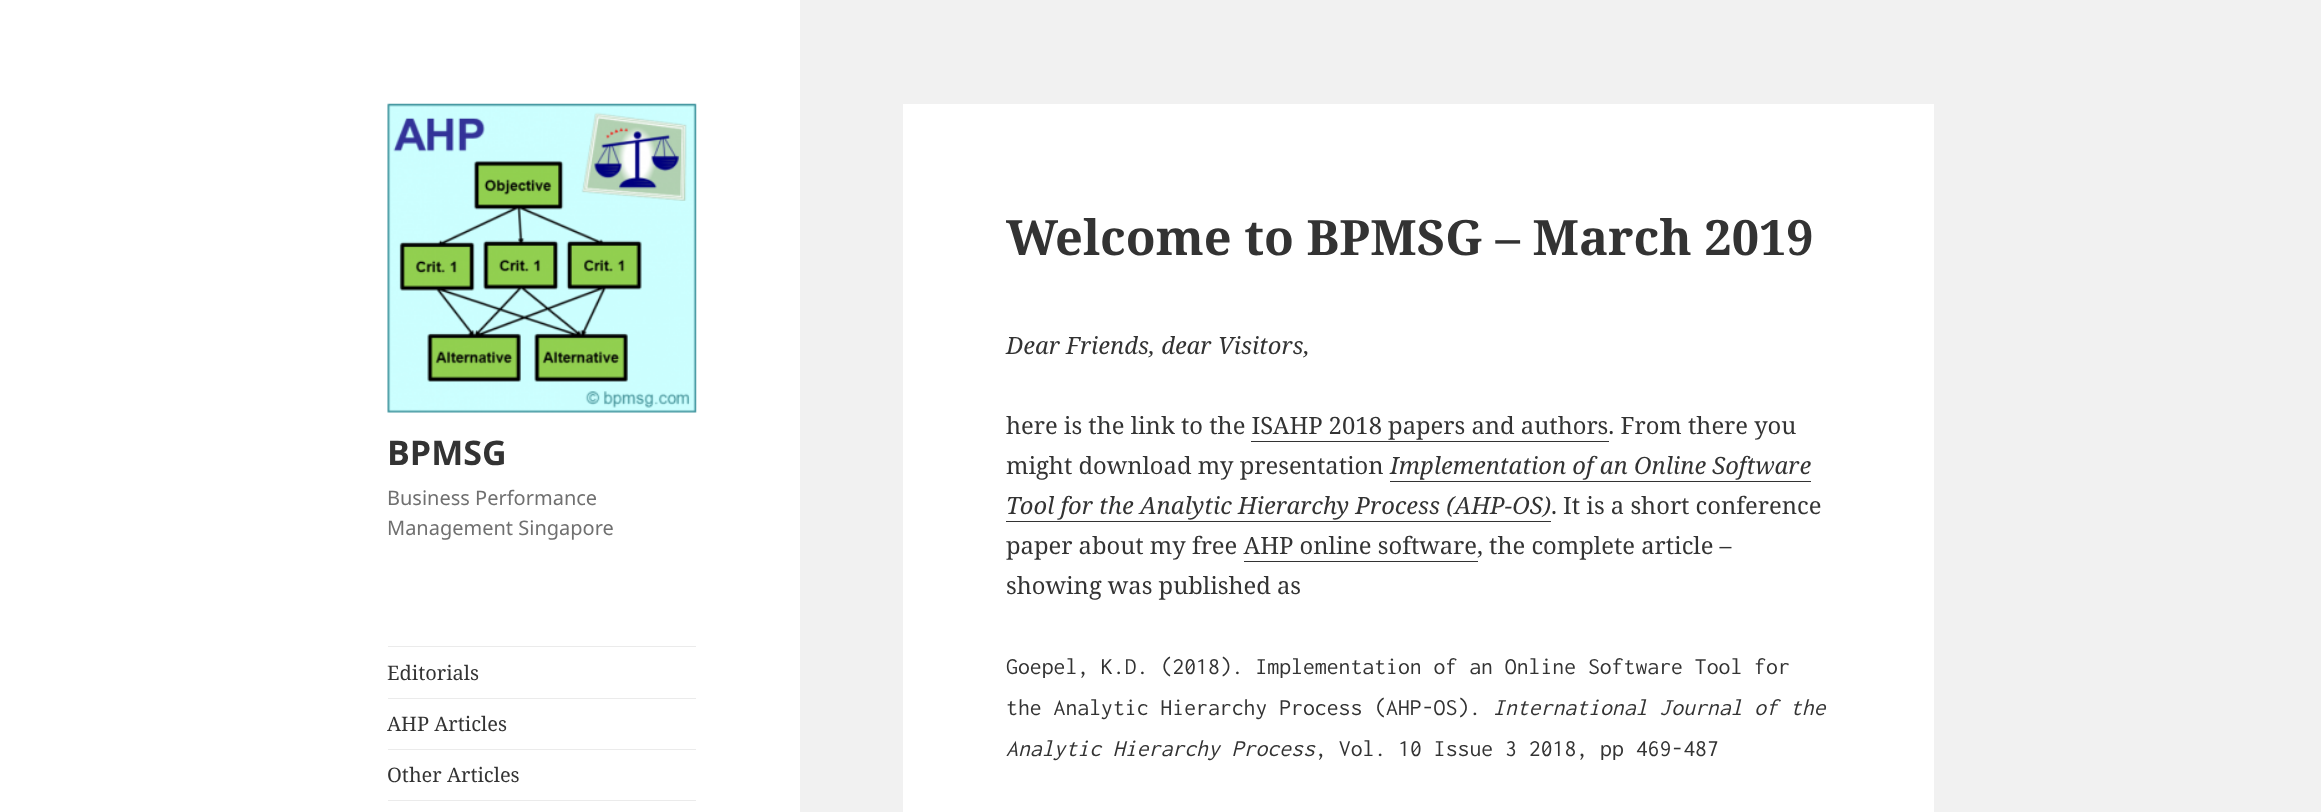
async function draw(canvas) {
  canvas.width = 2321
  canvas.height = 812
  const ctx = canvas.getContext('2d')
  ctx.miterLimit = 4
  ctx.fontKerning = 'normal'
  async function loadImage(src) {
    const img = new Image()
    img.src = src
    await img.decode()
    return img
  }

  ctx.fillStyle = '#f1f1f1'
  ctx.fillRect(0, 0, 2321, 812)
  ctx.fillStyle = '#fff'
  ctx.fillRect(0, 0, 800, 812)
  ctx.drawImage(await loadImage('image0.png'), 387, 103, 310, 310)
  ctx.font = 'bold 34px Noto Sans'
  ctx.fillStyle = '#333'
  ctx.fillText('BPMSG', 387, 465)
  ctx.font = '20px Noto Sans'
  ctx.fillStyle = '#707070'
  ctx.fillText('Business Performance', 387, 505)
  ctx.fillText('Management Singapore', 387, 535)
  ctx.fillStyle = '#ebebeb'
  ctx.fillRect(388, 646, 308, 1)
  ctx.font = '20px Noto Serif'
  ctx.fillStyle = '#333'
  ctx.fillText('Editorials', 387, 680)
  ctx.fillStyle = '#ebebeb'
  ctx.fillRect(388, 698, 308, 1)
  ctx.fillStyle = '#333'
  ctx.fillText('AHP Articles', 387, 731)
  ctx.fillStyle = '#ebebeb'
  ctx.fillRect(388, 749, 308, 1)
  ctx.fillStyle = '#333'
  ctx.fillText('Other Articles', 387, 782)
  ctx.fillStyle = '#ebebeb'
  ctx.fillRect(388, 800, 308, 1)
  ctx.fillStyle = '#fff'
  ctx.fillRect(903, 104, 1031, 708)
  ctx.font = 'bold 48.75px Noto Serif'
  ctx.fillStyle = '#333'
  ctx.fillText('Welcome to BPMSG – March 2019', 1006, 255)
  ctx.font = 'italic 23.75px Noto Serif'
  ctx.fillText('Dear Friends, dear Visitors,', 1006, 354)
  ctx.font = '23.75px Noto Serif'
  ctx.fillText('here is the link to the ISAHP 2018 papers and authors. From there you', 1006, 434)
  ctx.fillRect(1251, 441, 358, 1)
  ctx.fillText('might download my presentation', 1006, 474)
  ctx.font = 'italic 23.75px Noto Serif'
  ctx.fillText('Implementation of an Online Software', 1390, 474)
  ctx.fillRect(1390, 481, 421, 1)
  ctx.fillText('Tool for the Analytic Hierarchy Process (AHP-OS)', 1006, 514)
  ctx.fillRect(1006, 521, 545, 1)
  ctx.font = '23.75px Noto Serif'
  ctx.fillText('. It is a short conference', 1551, 514)
  ctx.fillText('paper about my free AHP online software, the complete article –', 1006, 554)
  ctx.fillRect(1244, 561, 234, 1)
  ctx.fillText('showing was published as', 1006, 594)
  ctx.font = '23.75px Inconsolata'
  ctx.fillText('Goepel, K.D. (2018). Implementation of an Online Software Tool for', 1006, 674)
  ctx.fillText('the Analytic Hierarchy Process (AHP-OS).', 1006, 715)
  ctx.font = 'italic 23.75px Inconsolata'
  ctx.fillText('International Journal of the', 1493, 715)
  ctx.fillText('Analytic Hierarchy Process', 1006, 756)
  ctx.font = '23.75px Inconsolata'
  ctx.fillText(', Vol. 10 Issue 3 2018, pp 469-487', 1315, 756)
}

draw(document.querySelector('canvas'))
